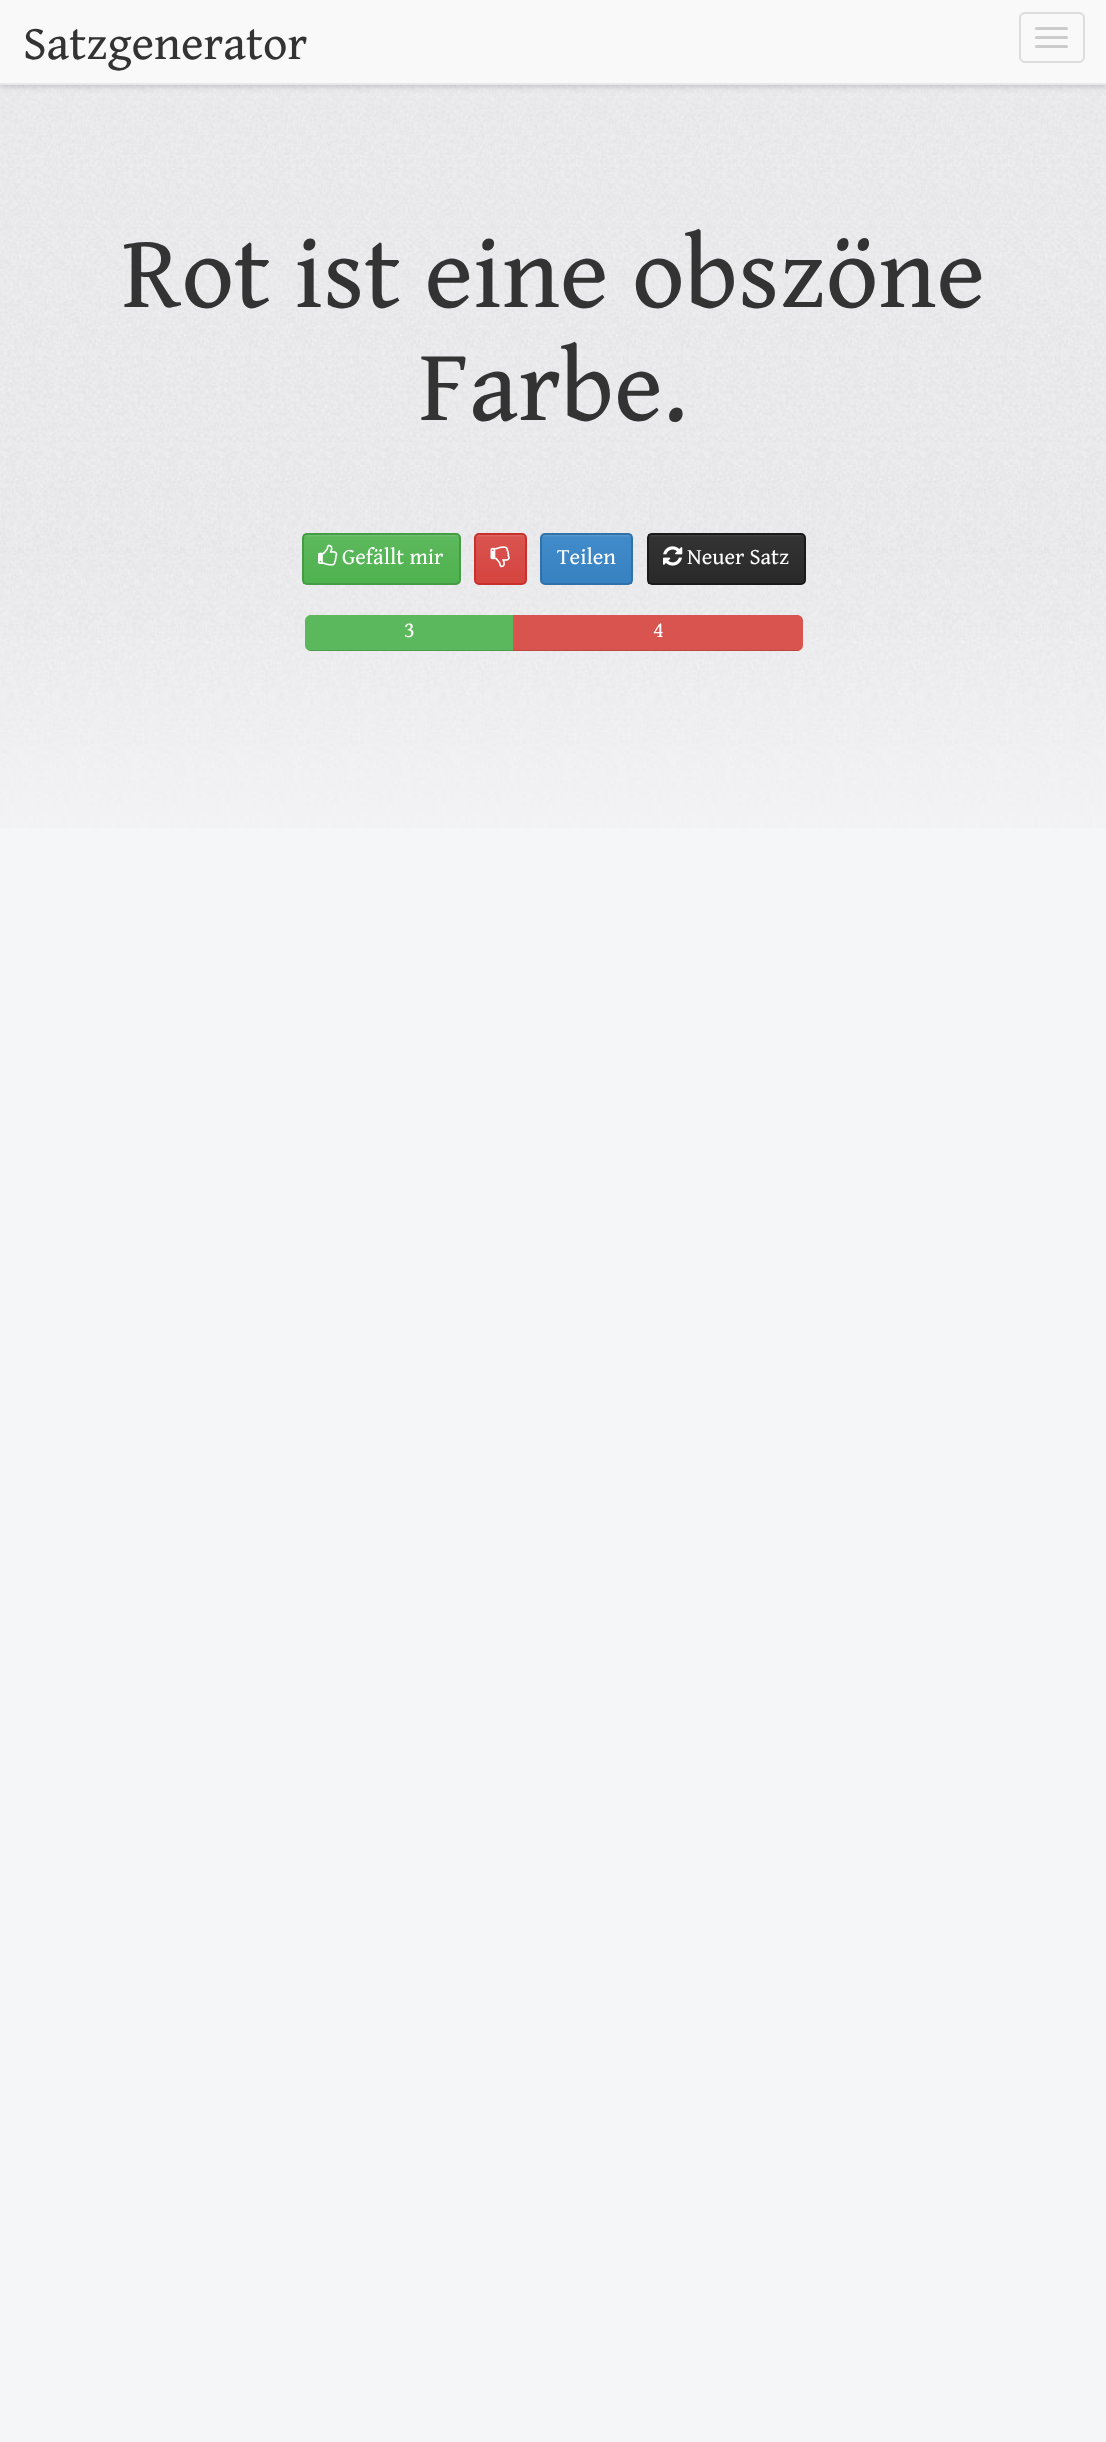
<?xml version="1.0" encoding="UTF-8"?>
<svg xmlns="http://www.w3.org/2000/svg" xmlns:xlink="http://www.w3.org/1999/xlink" width="1106" height="2442">
  <defs>
    <linearGradient id="g1" gradientUnits="userSpaceOnUse" x1="381" y1="534" x2="381" y2="584"><stop offset="0" stop-color="#80c780" /><stop offset="0.06" stop-color="#5cb85c" /><stop offset="1" stop-color="#4eb24e" /></linearGradient>
    <linearGradient id="g2" gradientUnits="userSpaceOnUse" x1="500" y1="534" x2="500" y2="584"><stop offset="0" stop-color="#e27c79" /><stop offset="0.06" stop-color="#d9534f" /><stop offset="1" stop-color="#d5433e" /></linearGradient>
    <linearGradient id="g3" gradientUnits="userSpaceOnUse" x1="587" y1="534" x2="587" y2="584"><stop offset="0" stop-color="#6aa3d5" /><stop offset="0.06" stop-color="#428bca" /><stop offset="1" stop-color="#3681c1" /></linearGradient>
    <linearGradient id="g4" gradientUnits="userSpaceOnUse" x1="726" y1="534" x2="726" y2="584"><stop offset="0" stop-color="#4d4d4d" /><stop offset="0.06" stop-color="#333333" /><stop offset="1" stop-color="#292929" /></linearGradient>
    <clipPath id="clip1"><rect x="305" y="615" width="498" height="36" rx="6" /></clipPath>
  </defs>
  <rect width="100%" height="100%" fill="#f5f6f7" />
  <image x="0" y="85" width="1106" height="743" xlink:href="image1.png" />
  <rect y="2" width="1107" height="84" fill="#000000" fill-opacity="0.2" filter="blur(3px)" />
  <rect width="1106" height="83" fill="#f9f9f9" />
  <rect y="83" width="1106" height="2" fill="#e8e8e8" />
  <rect x="1020" y="13" width="64" height="49" rx="5" fill="none" stroke="#dddddd" stroke-width="2" />
  <rect x="1035" y="27" width="33" height="3" rx="1.5" fill="#cccccc" />
  <rect x="1035" y="36" width="33" height="3" rx="1.5" fill="#cccccc" />
  <rect x="1035" y="45" width="33" height="3" rx="1.5" fill="#cccccc" />
  <rect x="303" y="534" width="156" height="50" fill="url(#g1)" />
  <rect x="303" y="534" width="157" height="50" rx="4" fill="none" stroke="#449d44" stroke-width="2" />
  <image x="318" y="544" width="20" height="22" xlink:href="image2.png" />
  <rect x="476" y="535" width="49" height="48" fill="url(#g2)" />
  <rect x="475" y="534" width="51" height="50" rx="4" fill="none" stroke="#c9302c" stroke-width="2" />
  <image x="490" y="546" width="20" height="22" xlink:href="image3.png" />
  <rect x="542" y="534" width="90" height="50" fill="url(#g3)" />
  <rect x="541" y="534" width="91" height="50" rx="4" fill="none" stroke="#3071a9" stroke-width="2" />
  <rect x="648" y="534" width="156" height="50" fill="url(#g4)" />
  <rect x="648" y="534" width="157" height="50" rx="4" fill="none" stroke="#1a1a1a" stroke-width="2" />
  <image x="663" y="546" width="20" height="20" xlink:href="image4.png" />
  <path d="M 311 615 h 202 v 36 h -202 c -3.5 0 -6 -2.5 -6 -6 v -24 c 0 -3.5 2.5 -6 6 -6 z" fill="#5cb85c" />
  <g clip-path="url(#clip1)">
    <rect x="305" y="650" width="208" height="1" fill="#000000" fill-opacity="0.15" />
  </g>
  <path d="M 513 615 h 284 c 3.5 0 6 2.5 6 6 v 24 c 0 3.5 -2.5 6 -6 6 h -284 z" fill="#d9534f" />
  <g clip-path="url(#clip1)">
    <rect x="513" y="650" width="290" height="1" fill="#000000" fill-opacity="0.15" />
  </g>
  <text x="23" y="59" style="font-family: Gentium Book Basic; font-size: 48px; fill: #333333">Satzgenerator</text>
  <text x="122" y="307" style="font-family: Gentium Book Basic; font-size: 103.25px; fill: #333333">Rot ist eine obszöne</text>
  <text x="419" y="420" style="font-family: Gentium Book Basic; font-size: 103.25px; fill: #333333">Farbe.</text>
  <text x="342" y="564" style="font-family: Gentium Book Basic; font-size: 22.5px; fill: #ffffff">Gefällt mir</text>
  <text x="557" y="564" style="font-family: Gentium Book Basic; font-size: 22.5px; fill: #ffffff">Teilen</text>
  <text x="687" y="564" style="font-family: Gentium Book Basic; font-size: 22.5px; fill: #ffffff">Neuer Satz</text>
  <text x="404" y="637" style="font-family: Gentium Book Basic; font-size: 22.5px; fill: #ffffff">3</text>
  <text x="653" y="637" style="font-family: Gentium Book Basic; font-size: 22.5px; fill: #ffffff">4</text>
</svg>
